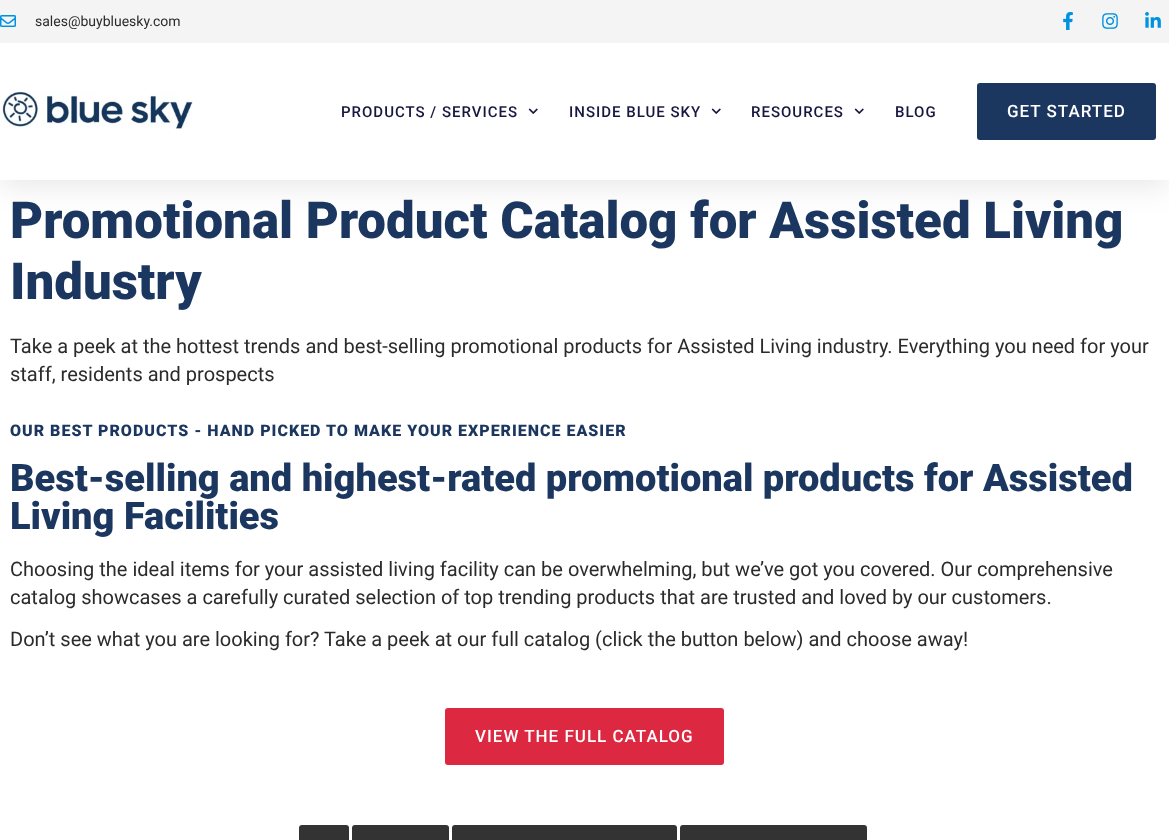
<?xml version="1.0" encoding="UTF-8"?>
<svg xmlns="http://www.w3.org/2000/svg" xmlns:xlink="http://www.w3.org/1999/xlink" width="1169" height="840">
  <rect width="100%" height="100%" fill="#ffffff" />
  <rect y="5" width="1169" height="180" fill="#000000" fill-opacity="0.1" filter="blur(15px)" />
  <rect width="1169" height="43" fill="#f4f4f4" />
  <image x="0" y="15" width="16" height="12" xlink:href="image1.png" />
  <image x="1063" y="12" width="10" height="18" xlink:href="image2.png" />
  <image x="1102" y="13" width="16" height="16" xlink:href="image3.png" />
  <image x="1145" y="12" width="16" height="16" xlink:href="image4.png" />
  <rect y="43" width="1169" height="137" fill="#ffffff" />
  <image x="0" y="91" width="193" height="38" xlink:href="image5.png" />
  <image x="528" y="108" width="10" height="6" xlink:href="image6.png" />
  <image x="711" y="108" width="10" height="6" xlink:href="image6.png" />
  <image x="854" y="108" width="10" height="6" xlink:href="image6.png" />
  <rect x="977" y="83" width="179" height="57" rx="3" fill="#1b365f" />
  <rect x="445" y="708" width="279" height="57" rx="3" fill="#dc2841" />
  <rect x="299" y="825" width="50" height="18" rx="3" fill="#333333" />
  <rect x="352" y="825" width="97" height="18" rx="3" fill="#333333" />
  <rect x="452" y="825" width="225" height="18" rx="3" fill="#333333" />
  <rect x="680" y="825" width="187" height="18" rx="3" fill="#333333" />
  <text x="35" y="26" style="font-family: Roboto; font-size: 14px; fill: #2b2b2b">sales@buybluesky.com</text>
  <text x="341" y="117" style="font-family: Roboto; font-size: 15px; font-weight: 500; letter-spacing: 1px; fill: #16163f">PRODUCTS / SERVICES</text>
  <text x="569" y="117" style="font-family: Roboto; font-size: 15px; font-weight: 500; letter-spacing: 1px; fill: #16163f">INSIDE BLUE SKY</text>
  <text x="751" y="117" style="font-family: Roboto; font-size: 15px; font-weight: 500; letter-spacing: 1px; fill: #16163f">RESOURCES</text>
  <text x="895" y="117" style="font-family: Roboto; font-size: 15px; font-weight: 500; letter-spacing: 1px; fill: #16163f">BLOG</text>
  <text x="1007" y="117" style="font-family: Roboto; font-size: 17px; font-weight: 500; letter-spacing: 1px; fill: #ffffff">GET STARTED</text>
  <text x="10" y="238" style="font-family: Roboto; font-size: 51px; font-weight: 900; fill: #1b365f">Promotional Product Catalog for Assisted Living</text>
  <text x="10" y="299" style="font-family: Roboto; font-size: 51px; font-weight: 900; fill: #1b365f">Industry</text>
  <text x="10" y="353" style="font-family: Roboto; font-size: 20px; fill: #2b2b2b">Take a peek at the hottest trends and best-selling promotional products for Assisted Living industry. Everything you need for your</text>
  <text x="10" y="381" style="font-family: Roboto; font-size: 20px; fill: #2b2b2b">staff, residents and prospects</text>
  <text x="10" y="436" style="font-family: Roboto; font-size: 16px; font-weight: 900; letter-spacing: 1px; fill: #1b365f">OUR BEST PRODUCTS - HAND PICKED TO MAKE YOUR EXPERIENCE EASIER</text>
  <text x="10" y="491" style="font-family: Roboto; font-size: 38px; font-weight: 900; fill: #1b365f">Best-selling and highest-rated promotional products for Assisted</text>
  <text x="10" y="529" style="font-family: Roboto; font-size: 38px; font-weight: 900; fill: #1b365f">Living Facilities</text>
  <text x="10" y="576" style="font-family: Roboto; font-size: 20px; fill: #2b2b2b">Choosing the ideal items for your assisted living facility can be overwhelming, but we’ve got you covered. Our comprehensive</text>
  <text x="10" y="604" style="font-family: Roboto; font-size: 20px; fill: #2b2b2b">catalog showcases a carefully curated selection of top trending products that are trusted and loved by our customers.</text>
  <text x="10" y="646" style="font-family: Roboto; font-size: 20px; fill: #2b2b2b">Don’t see what you are looking for? Take a peek at our full catalog (click the button below) and choose away!</text>
  <text x="475" y="742" style="font-family: Roboto; font-size: 17px; font-weight: 500; letter-spacing: 1px; fill: #ffffff">VIEW THE FULL CATALOG</text>
</svg>
